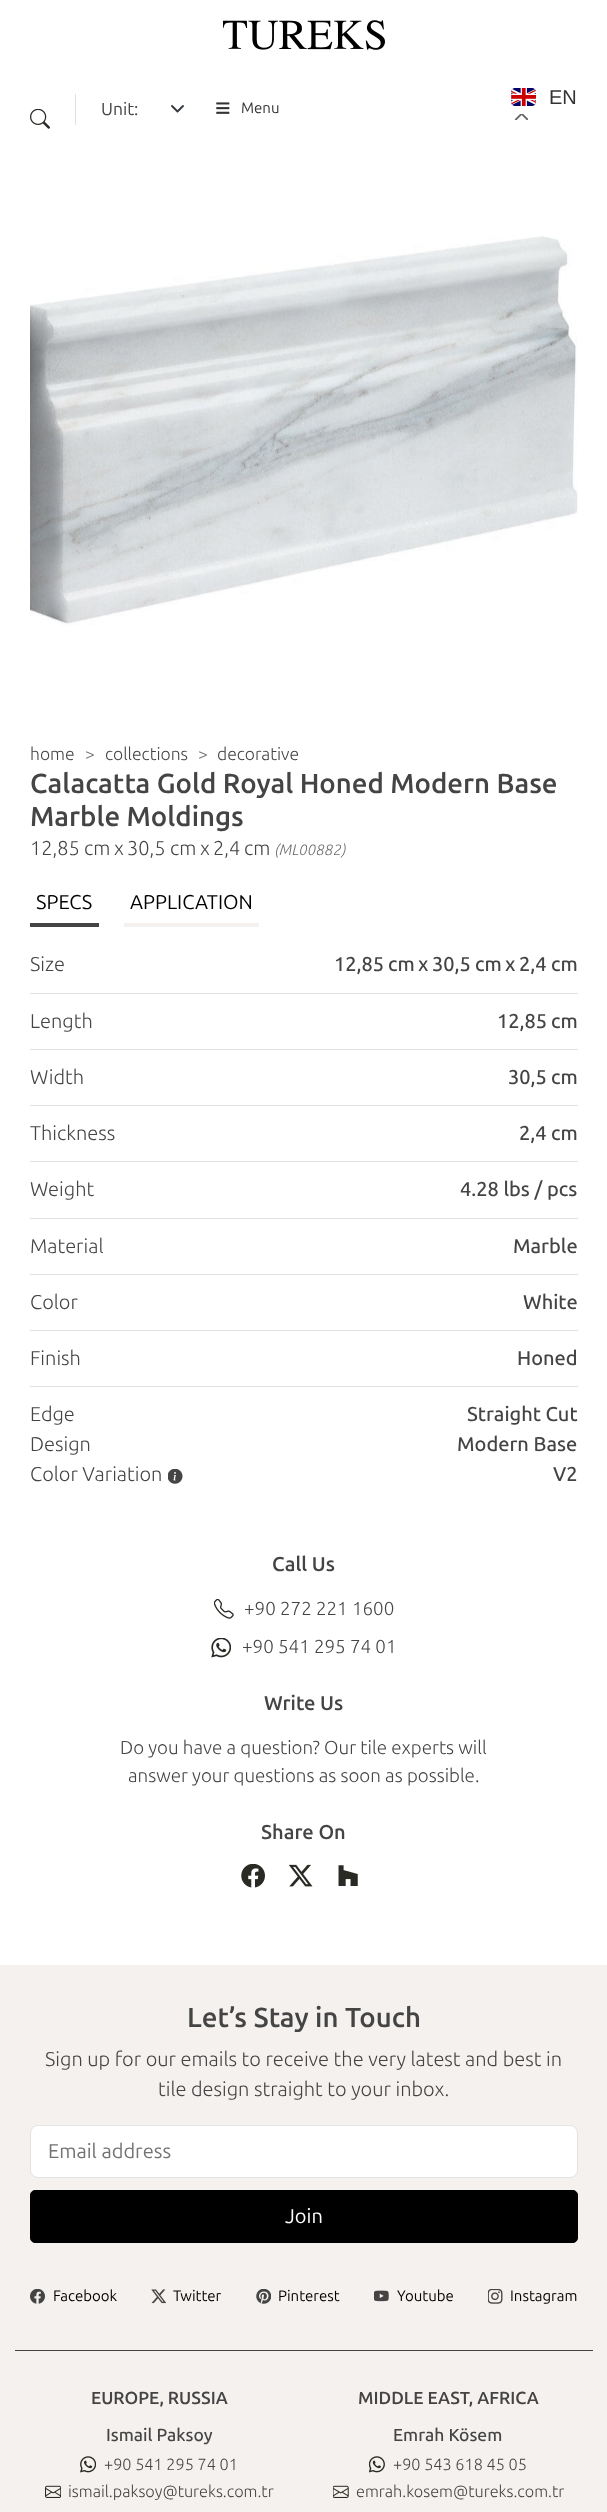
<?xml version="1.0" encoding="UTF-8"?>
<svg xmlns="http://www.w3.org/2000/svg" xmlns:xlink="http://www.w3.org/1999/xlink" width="607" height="2512">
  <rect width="100%" height="100%" fill="#ffffff" />
  <image x="223" y="20" width="162" height="30" xlink:href="image1.png" />
  <image x="511" y="88" width="25" height="18" xlink:href="image2.png" />
  <image x="514" y="114" width="14" height="6" xlink:href="image3.png" />
  <image x="30" y="109" width="20" height="20" xlink:href="image4.png" />
  <rect x="75" y="94" width="1" height="31" fill="#dee2e6" />
  <path d="M 172 106 l 5.5 5.5 l 5.5 -5.5" fill="none" stroke="#343a40" stroke-width="1.9" stroke-linecap="round" stroke-linejoin="round" />
  <image x="216" y="102" width="14" height="12" xlink:href="image5.png" />
  <image x="30" y="236" width="548" height="390" xlink:href="image6.png" />
  <rect x="30" y="923" width="69" height="4" fill="#444444" />
  <rect x="124" y="923" width="135" height="4" fill="#f5f1ef" />
  <rect x="30" y="993" width="548" height="1" fill="#dee2e6" />
  <rect x="30" y="1049" width="548" height="1" fill="#dee2e6" />
  <rect x="30" y="1105" width="548" height="1" fill="#dee2e6" />
  <rect x="30" y="1161" width="548" height="1" fill="#dee2e6" />
  <rect x="30" y="1218" width="548" height="1" fill="#dee2e6" />
  <rect x="30" y="1274" width="548" height="1" fill="#dee2e6" />
  <rect x="30" y="1330" width="548" height="1" fill="#dee2e6" />
  <rect x="30" y="1386" width="548" height="1" fill="#dee2e6" />
  <image x="168" y="1469" width="15" height="15" xlink:href="image7.png" />
  <image x="214" y="1599" width="20" height="20" xlink:href="image8.png" />
  <image x="211" y="1638" width="20" height="20" xlink:href="image9.png" />
  <image x="241" y="1864" width="24" height="24" xlink:href="image10.png" />
  <image x="289" y="1864" width="24" height="23" xlink:href="image11.png" />
  <image x="338" y="1865" width="20" height="21" xlink:href="image12.png" />
  <rect y="1965" width="607" height="547" fill="#f5f1ef" />
  <rect x="15" y="2350" width="578" height="1" fill="#444444" />
  <rect x="30.5" y="2125.5" width="547" height="52" rx="7.5" fill="#ffffff" stroke="#e3e3e3" />
  <rect x="30.5" y="2190.5" width="547" height="52" rx="4.5" fill="#000000" stroke="#000000" />
  <image x="30" y="2289" width="15" height="15" xlink:href="image13.png" />
  <image x="151" y="2289" width="15" height="15" xlink:href="image14.png" />
  <image x="256" y="2289" width="15" height="15" xlink:href="image15.png" />
  <image x="374" y="2290" width="15" height="12" xlink:href="image16.png" />
  <image x="488" y="2289" width="15" height="15" xlink:href="image17.png" />
  <image x="80" y="2456" width="16" height="17" xlink:href="image18.png" />
  <image x="45" y="2485" width="16" height="13" xlink:href="image19.png" />
  <image x="369" y="2456" width="16" height="17" xlink:href="image20.png" />
  <image x="333" y="2485" width="16" height="13" xlink:href="image21.png" />
  <text x="549" y="104" style="font-family: Liberation Sans; font-size: 20px; fill: #333333">EN</text>
  <text x="101" y="115" style="font-family: Ubuntu Sans; font-size: 17.5px; fill: #444444">Unit:</text>
  <text x="241" y="113" style="font-family: Ubuntu Sans; font-size: 15px; fill: #333333">Menu</text>
  <text x="30" y="760" style="font-family: Ubuntu Sans; font-size: 17.5px; font-weight: 300; fill: #444444">home</text>
  <text x="85" y="760" style="font-family: Ubuntu Sans; font-size: 17.5px; font-weight: 300; fill: #737373">&gt;</text>
  <text x="105" y="760" style="font-family: Ubuntu Sans; font-size: 17.5px; font-weight: 300; fill: #444444">collections</text>
  <text x="198" y="760" style="font-family: Ubuntu Sans; font-size: 17.5px; font-weight: 300; fill: #737373">&gt;</text>
  <text x="217" y="760" style="font-family: Ubuntu Sans; font-size: 17.5px; font-weight: 300; fill: #444444">decorative</text>
  <text x="30" y="793" style="font-family: Ubuntu Sans; font-size: 27.5px; font-weight: 600; fill: #444444">Calacatta Gold Royal Honed Modern Base</text>
  <text x="30" y="826" style="font-family: Ubuntu Sans; font-size: 27.5px; font-weight: 600; fill: #444444">Marble Moldings</text>
  <text x="30" y="855" style="font-family: Ubuntu Sans; font-size: 20px; font-weight: 300; fill: #444444">12,85</text>
  <text x="84" y="855" style="font-family: Ubuntu Sans; font-size: 20px; font-weight: 300; fill: #444444">cm</text>
  <text x="114" y="855" style="font-family: Ubuntu Sans; font-size: 20px; font-weight: 300; fill: #444444">x</text>
  <text x="127" y="855" style="font-family: Ubuntu Sans; font-size: 20px; font-weight: 300; fill: #444444">30,5</text>
  <text x="170" y="855" style="font-family: Ubuntu Sans; font-size: 20px; font-weight: 300; fill: #444444">cm</text>
  <text x="200" y="855" style="font-family: Ubuntu Sans; font-size: 20px; font-weight: 300; fill: #444444">x</text>
  <text x="213" y="855" style="font-family: Ubuntu Sans; font-size: 20px; font-weight: 300; fill: #444444">2,4</text>
  <text x="244" y="855" style="font-family: Ubuntu Sans; font-size: 20px; font-weight: 300; fill: #444444">cm</text>
  <text x="275" y="855" style="font-family: Ubuntu Sans; font-size: 15px; font-weight: 300; font-style: italic; fill: #696969">(ML00882)</text>
  <text x="36" y="909" style="font-family: Ubuntu Sans; font-size: 20px; fill: #000000">SPECS</text>
  <text x="130" y="909" style="font-family: Ubuntu Sans; font-size: 20px; fill: #000000">APPLICATION</text>
  <text x="30" y="971" style="font-family: Ubuntu Sans; font-size: 20px; font-weight: 300; fill: #444444">Size</text>
  <text x="334" y="971" style="font-family: Ubuntu Sans; font-size: 20px; font-weight: 500; fill: #444444">12,85</text>
  <text x="388" y="971" style="font-family: Ubuntu Sans; font-size: 20px; font-weight: 500; fill: #444444">cm</text>
  <text x="418" y="971" style="font-family: Ubuntu Sans; font-size: 20px; font-weight: 500; fill: #444444">x</text>
  <text x="432" y="971" style="font-family: Ubuntu Sans; font-size: 20px; font-weight: 500; fill: #444444">30,5</text>
  <text x="475" y="971" style="font-family: Ubuntu Sans; font-size: 20px; font-weight: 500; fill: #444444">cm</text>
  <text x="505" y="971" style="font-family: Ubuntu Sans; font-size: 20px; font-weight: 500; fill: #444444">x</text>
  <text x="519" y="971" style="font-family: Ubuntu Sans; font-size: 20px; font-weight: 500; fill: #444444">2,4</text>
  <text x="551" y="971" style="font-family: Ubuntu Sans; font-size: 20px; font-weight: 500; fill: #444444">cm</text>
  <text x="30" y="1028" style="font-family: Ubuntu Sans; font-size: 20px; font-weight: 300; fill: #444444">Length</text>
  <text x="497" y="1028" style="font-family: Ubuntu Sans; font-size: 20px; font-weight: 500; fill: #444444">12,85</text>
  <text x="551" y="1028" style="font-family: Ubuntu Sans; font-size: 20px; font-weight: 500; fill: #444444">cm</text>
  <text x="30" y="1084" style="font-family: Ubuntu Sans; font-size: 20px; font-weight: 300; fill: #444444">Width</text>
  <text x="508" y="1084" style="font-family: Ubuntu Sans; font-size: 20px; font-weight: 500; fill: #444444">30,5</text>
  <text x="551" y="1084" style="font-family: Ubuntu Sans; font-size: 20px; font-weight: 500; fill: #444444">cm</text>
  <text x="30" y="1140" style="font-family: Ubuntu Sans; font-size: 20px; font-weight: 300; fill: #444444">Thickness</text>
  <text x="519" y="1140" style="font-family: Ubuntu Sans; font-size: 20px; font-weight: 500; fill: #444444">2,4</text>
  <text x="551" y="1140" style="font-family: Ubuntu Sans; font-size: 20px; font-weight: 500; fill: #444444">cm</text>
  <text x="30" y="1196" style="font-family: Ubuntu Sans; font-size: 20px; font-weight: 300; fill: #444444">Weight</text>
  <text x="460" y="1196" style="font-family: Ubuntu Sans; font-size: 20px; font-weight: 500; fill: #444444">4.28 lbs / pcs</text>
  <text x="30" y="1253" style="font-family: Ubuntu Sans; font-size: 20px; font-weight: 300; fill: #444444">Material</text>
  <text x="513" y="1253" style="font-family: Ubuntu Sans; font-size: 20px; font-weight: 500; fill: #444444">Marble</text>
  <text x="30" y="1309" style="font-family: Ubuntu Sans; font-size: 20px; font-weight: 300; fill: #444444">Color</text>
  <text x="523" y="1309" style="font-family: Ubuntu Sans; font-size: 20px; font-weight: 500; fill: #444444">White</text>
  <text x="30" y="1365" style="font-family: Ubuntu Sans; font-size: 20px; font-weight: 300; fill: #444444">Finish</text>
  <text x="517" y="1365" style="font-family: Ubuntu Sans; font-size: 20px; font-weight: 500; fill: #444444">Honed</text>
  <text x="30" y="1421" style="font-family: Ubuntu Sans; font-size: 20px; font-weight: 300; fill: #444444">Edge</text>
  <text x="467" y="1421" style="font-family: Ubuntu Sans; font-size: 20px; font-weight: 500; fill: #444444">Straight Cut</text>
  <text x="30" y="1451" style="font-family: Ubuntu Sans; font-size: 20px; font-weight: 300; fill: #444444">Design</text>
  <text x="457" y="1451" style="font-family: Ubuntu Sans; font-size: 20px; font-weight: 500; fill: #444444">Modern Base</text>
  <text x="30" y="1481" style="font-family: Ubuntu Sans; font-size: 20px; font-weight: 300; fill: #444444">Color Variation</text>
  <text x="553" y="1481" style="font-family: Ubuntu Sans; font-size: 20px; font-weight: 500; fill: #444444">V2</text>
  <text x="272" y="1571" style="font-family: Ubuntu Sans; font-size: 20px; font-weight: 600; fill: #444444">Call Us</text>
  <text x="244" y="1615" style="font-family: Ubuntu Sans; font-size: 18.75px; font-weight: 300; fill: #444444">+90 272 221 1600</text>
  <text x="242" y="1653" style="font-family: Ubuntu Sans; font-size: 18.75px; font-weight: 300; fill: #444444">+90 541 295 74 01</text>
  <text x="264" y="1710" style="font-family: Ubuntu Sans; font-size: 20px; font-weight: 600; fill: #444444">Write Us</text>
  <text x="120" y="1754" style="font-family: Ubuntu Sans; font-size: 18.75px; font-weight: 300; fill: #444444">Do you have a question? Our tile experts will</text>
  <text x="128" y="1782" style="font-family: Ubuntu Sans; font-size: 18.75px; font-weight: 300; fill: #444444">answer your questions as soon as possible.</text>
  <text x="261" y="1839" style="font-family: Ubuntu Sans; font-size: 20px; font-weight: 600; fill: #444444">Share On</text>
  <text x="187" y="2027" style="font-family: Ubuntu Sans; font-size: 27.5px; font-weight: 600; fill: #444444">Let’s Stay in Touch</text>
  <text x="45" y="2066" style="font-family: Ubuntu Sans; font-size: 20px; font-weight: 300; fill: #444444">Sign up for our emails to receive the very latest and best in</text>
  <text x="158" y="2096" style="font-family: Ubuntu Sans; font-size: 20px; font-weight: 300; fill: #444444">tile design straight to your inbox.</text>
  <text x="48" y="2158" style="font-family: Ubuntu Sans; font-size: 20px; fill: #737373">Email address</text>
  <text x="285" y="2223" style="font-family: Ubuntu Sans; font-size: 20px; fill: #ffffff">Join</text>
  <text x="53" y="2301" style="font-family: Ubuntu Sans; font-size: 15px; fill: #000000">Facebook</text>
  <text x="173" y="2301" style="font-family: Ubuntu Sans; font-size: 15px; fill: #000000">Twitter</text>
  <text x="278" y="2301" style="font-family: Ubuntu Sans; font-size: 15px; fill: #000000">Pinterest</text>
  <text x="397" y="2301" style="font-family: Ubuntu Sans; font-size: 15px; fill: #000000">Youtube</text>
  <text x="510" y="2301" style="font-family: Ubuntu Sans; font-size: 15px; fill: #000000">Instagram</text>
  <text x="91" y="2404" style="font-family: Ubuntu Sans; font-size: 17.5px; font-weight: 600; fill: #444444">EUROPE, RUSSIA</text>
  <text x="106" y="2441" style="font-family: Ubuntu Sans; font-size: 17.5px; font-weight: 500; fill: #444444">Ismail Paksoy</text>
  <text x="104" y="2470" style="font-family: Ubuntu Sans; font-size: 16.25px; font-weight: 300; fill: #444444">+90 541 295 74 01</text>
  <text x="68" y="2497" style="font-family: Ubuntu Sans; font-size: 16.25px; font-weight: 300; fill: #444444">ismail.paksoy@tureks.com.tr</text>
  <text x="358" y="2404" style="font-family: Ubuntu Sans; font-size: 17.5px; font-weight: 600; fill: #444444">MIDDLE EAST, AFRICA</text>
  <text x="393" y="2441" style="font-family: Ubuntu Sans; font-size: 17.5px; font-weight: 500; fill: #444444">Emrah Kösem</text>
  <text x="393" y="2470" style="font-family: Ubuntu Sans; font-size: 16.25px; font-weight: 300; fill: #444444">+90 543 618 45 05</text>
  <text x="356" y="2497" style="font-family: Ubuntu Sans; font-size: 16.25px; font-weight: 300; fill: #444444">emrah.kosem@tureks.com.tr</text>
</svg>
